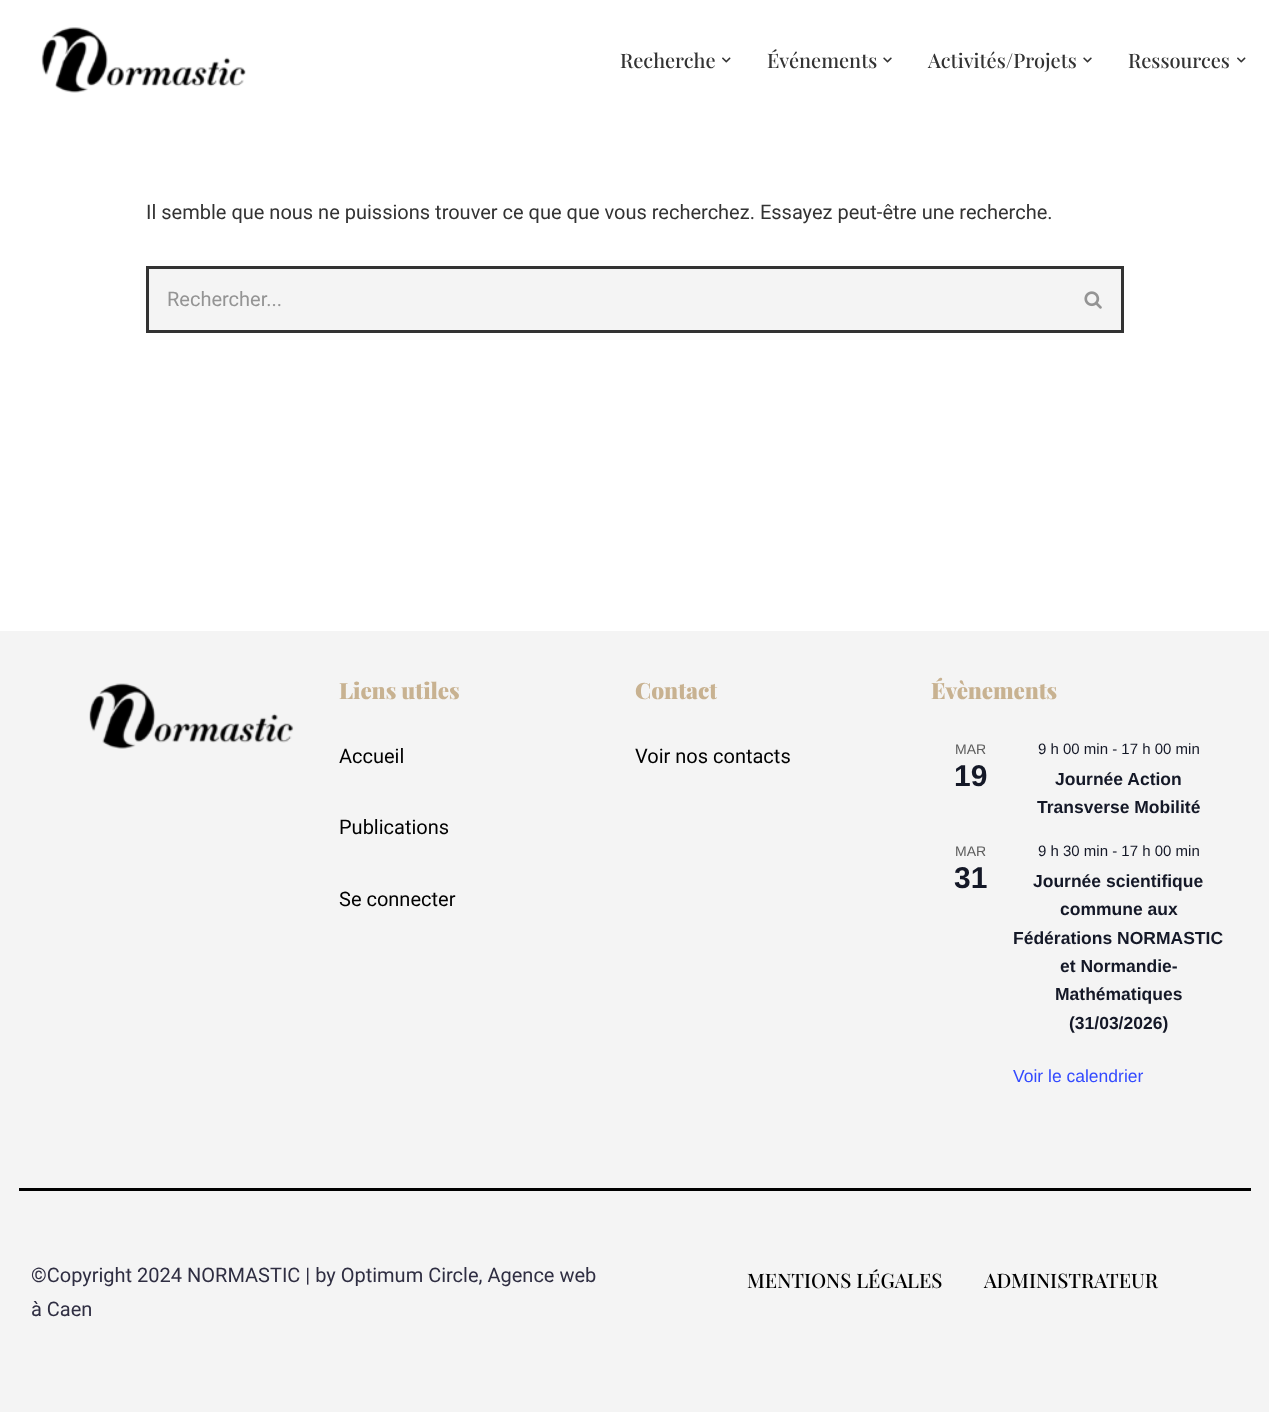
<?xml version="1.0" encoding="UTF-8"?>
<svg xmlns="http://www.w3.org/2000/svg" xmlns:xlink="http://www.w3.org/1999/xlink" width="1269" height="1412">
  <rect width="100%" height="100%" fill="#ffffff" />
  <image x="41" y="27" width="205" height="66" xlink:href="image1.png" />
  <image x="722" y="57" width="9" height="6" xlink:href="image2.png" />
  <image x="883" y="57" width="9" height="6" xlink:href="image3.png" />
  <image x="1083" y="57" width="9" height="6" xlink:href="image3.png" />
  <image x="1237" y="57" width="9" height="6" xlink:href="image2.png" />
  <rect x="149" y="269" width="972" height="61" fill="#f4f4f4" />
  <rect x="146" y="266" width="978" height="3" fill="#333333" />
  <rect x="146" y="330" width="919" height="3" fill="#333333" />
  <rect x="146" y="266" width="3" height="67" fill="#333333" />
  <rect x="1121" y="266" width="3" height="67" fill="#333333" />
  <rect x="1065" y="330" width="59" height="3" fill="#333333" />
  <image x="1084" y="291" width="18" height="18" xlink:href="image4.png" />
  <rect y="631" width="1269" height="781" fill="#f4f4f4" />
  <image x="89" y="683" width="205" height="66" xlink:href="image5.png" />
  <rect x="19" y="1188" width="1232" height="3" fill="#000000" />
  <text x="620" y="68" style="font-family: Playfair Display; font-size: 20px; font-weight: 500; fill: #333333">Recherche</text>
  <text x="767" y="68" style="font-family: Playfair Display; font-size: 20px; font-weight: 500; fill: #333333">Événements</text>
  <text x="928" y="68" style="font-family: Playfair Display; font-size: 20px; font-weight: 500; fill: #333333">Activités/Projets</text>
  <text x="1128" y="68" style="font-family: Playfair Display; font-size: 20px; font-weight: 500; fill: #333333">Ressources</text>
  <text x="146" y="219" style="font-family: Roboto; font-size: 20px; fill: #333333">Il semble que nous ne puissions trouver ce que que vous recherchez. Essayez peut-être une recherche.</text>
  <text x="167" y="306" style="font-family: Roboto; font-size: 20px; fill: #949494">Rechercher...</text>
  <text x="339" y="699" style="font-family: Playfair Display; font-size: 22.5px; font-weight: 900; fill: #c8b291">Liens utiles</text>
  <text x="339" y="763" style="font-family: Roboto; font-size: 20px; fill: #000000">Accueil</text>
  <text x="339" y="834" style="font-family: Roboto; font-size: 20px; fill: #000000">Publications</text>
  <text x="339" y="906" style="font-family: Roboto; font-size: 20px; fill: #000000">Se connecter</text>
  <text x="635" y="699" style="font-family: Playfair Display; font-size: 22.5px; font-weight: 900; fill: #c8b291">Contact</text>
  <text x="635" y="763" style="font-family: Roboto; font-size: 20px; fill: #000000">Voir nos contacts</text>
  <text x="931" y="699" style="font-family: Playfair Display; font-size: 22.5px; font-weight: 900; fill: #c8b291">Évènements</text>
  <text x="955" y="754" style="font-family: Liberation Sans; font-size: 14px; fill: #5d5d5d">MAR</text>
  <text x="954" y="786" style="font-family: Liberation Sans; font-size: 30px; font-weight: bold; fill: #141827">19</text>
  <text x="1038" y="754" style="font-family: Liberation Sans; font-size: 15px; fill: #141827">9 h 00 min - 17 h 00 min</text>
  <text x="1055" y="785" style="font-family: Liberation Sans; font-size: 17.5px; font-weight: bold; fill: #141827">Journée Action</text>
  <text x="1037" y="813" style="font-family: Liberation Sans; font-size: 17.5px; font-weight: bold; fill: #141827">Transverse Mobilité</text>
  <text x="955" y="856" style="font-family: Liberation Sans; font-size: 14px; fill: #5d5d5d">MAR</text>
  <text x="954" y="888" style="font-family: Liberation Sans; font-size: 30px; font-weight: bold; fill: #141827">31</text>
  <text x="1038" y="856" style="font-family: Liberation Sans; font-size: 15px; fill: #141827">9 h 30 min - 17 h 00 min</text>
  <text x="1033" y="887" style="font-family: Liberation Sans; font-size: 17.5px; font-weight: bold; fill: #141827">Journée scientifique</text>
  <text x="1060" y="915" style="font-family: Liberation Sans; font-size: 17.5px; font-weight: bold; fill: #141827">commune aux</text>
  <text x="1013" y="944" style="font-family: Liberation Sans; font-size: 17.5px; font-weight: bold; fill: #141827">Fédérations NORMASTIC</text>
  <text x="1060" y="972" style="font-family: Liberation Sans; font-size: 17.5px; font-weight: bold; fill: #141827">et Normandie-</text>
  <text x="1055" y="1000" style="font-family: Liberation Sans; font-size: 17.5px; font-weight: bold; fill: #141827">Mathématiques</text>
  <text x="1069" y="1029" style="font-family: Liberation Sans; font-size: 17.5px; font-weight: bold; fill: #141827">(31/03/2026)</text>
  <text x="1013" y="1082" style="font-family: Liberation Sans; font-size: 17.5px; fill: #334aff">Voir le calendrier</text>
  <text x="31" y="1282" style="font-family: Roboto; font-size: 20px; fill: #2f2e42">©Copyright 2024 NORMASTIC | by Optimum Circle, Agence web</text>
  <text x="31" y="1316" style="font-family: Roboto; font-size: 20px; fill: #2f2e42">à Caen</text>
  <text x="747" y="1288" style="font-family: Playfair Display; font-size: 20px; font-weight: 500; fill: #000000">MENTIONS LÉGALES</text>
  <text x="984" y="1288" style="font-family: Playfair Display; font-size: 20px; font-weight: 500; fill: #000000">ADMINISTRATEUR</text>
</svg>
